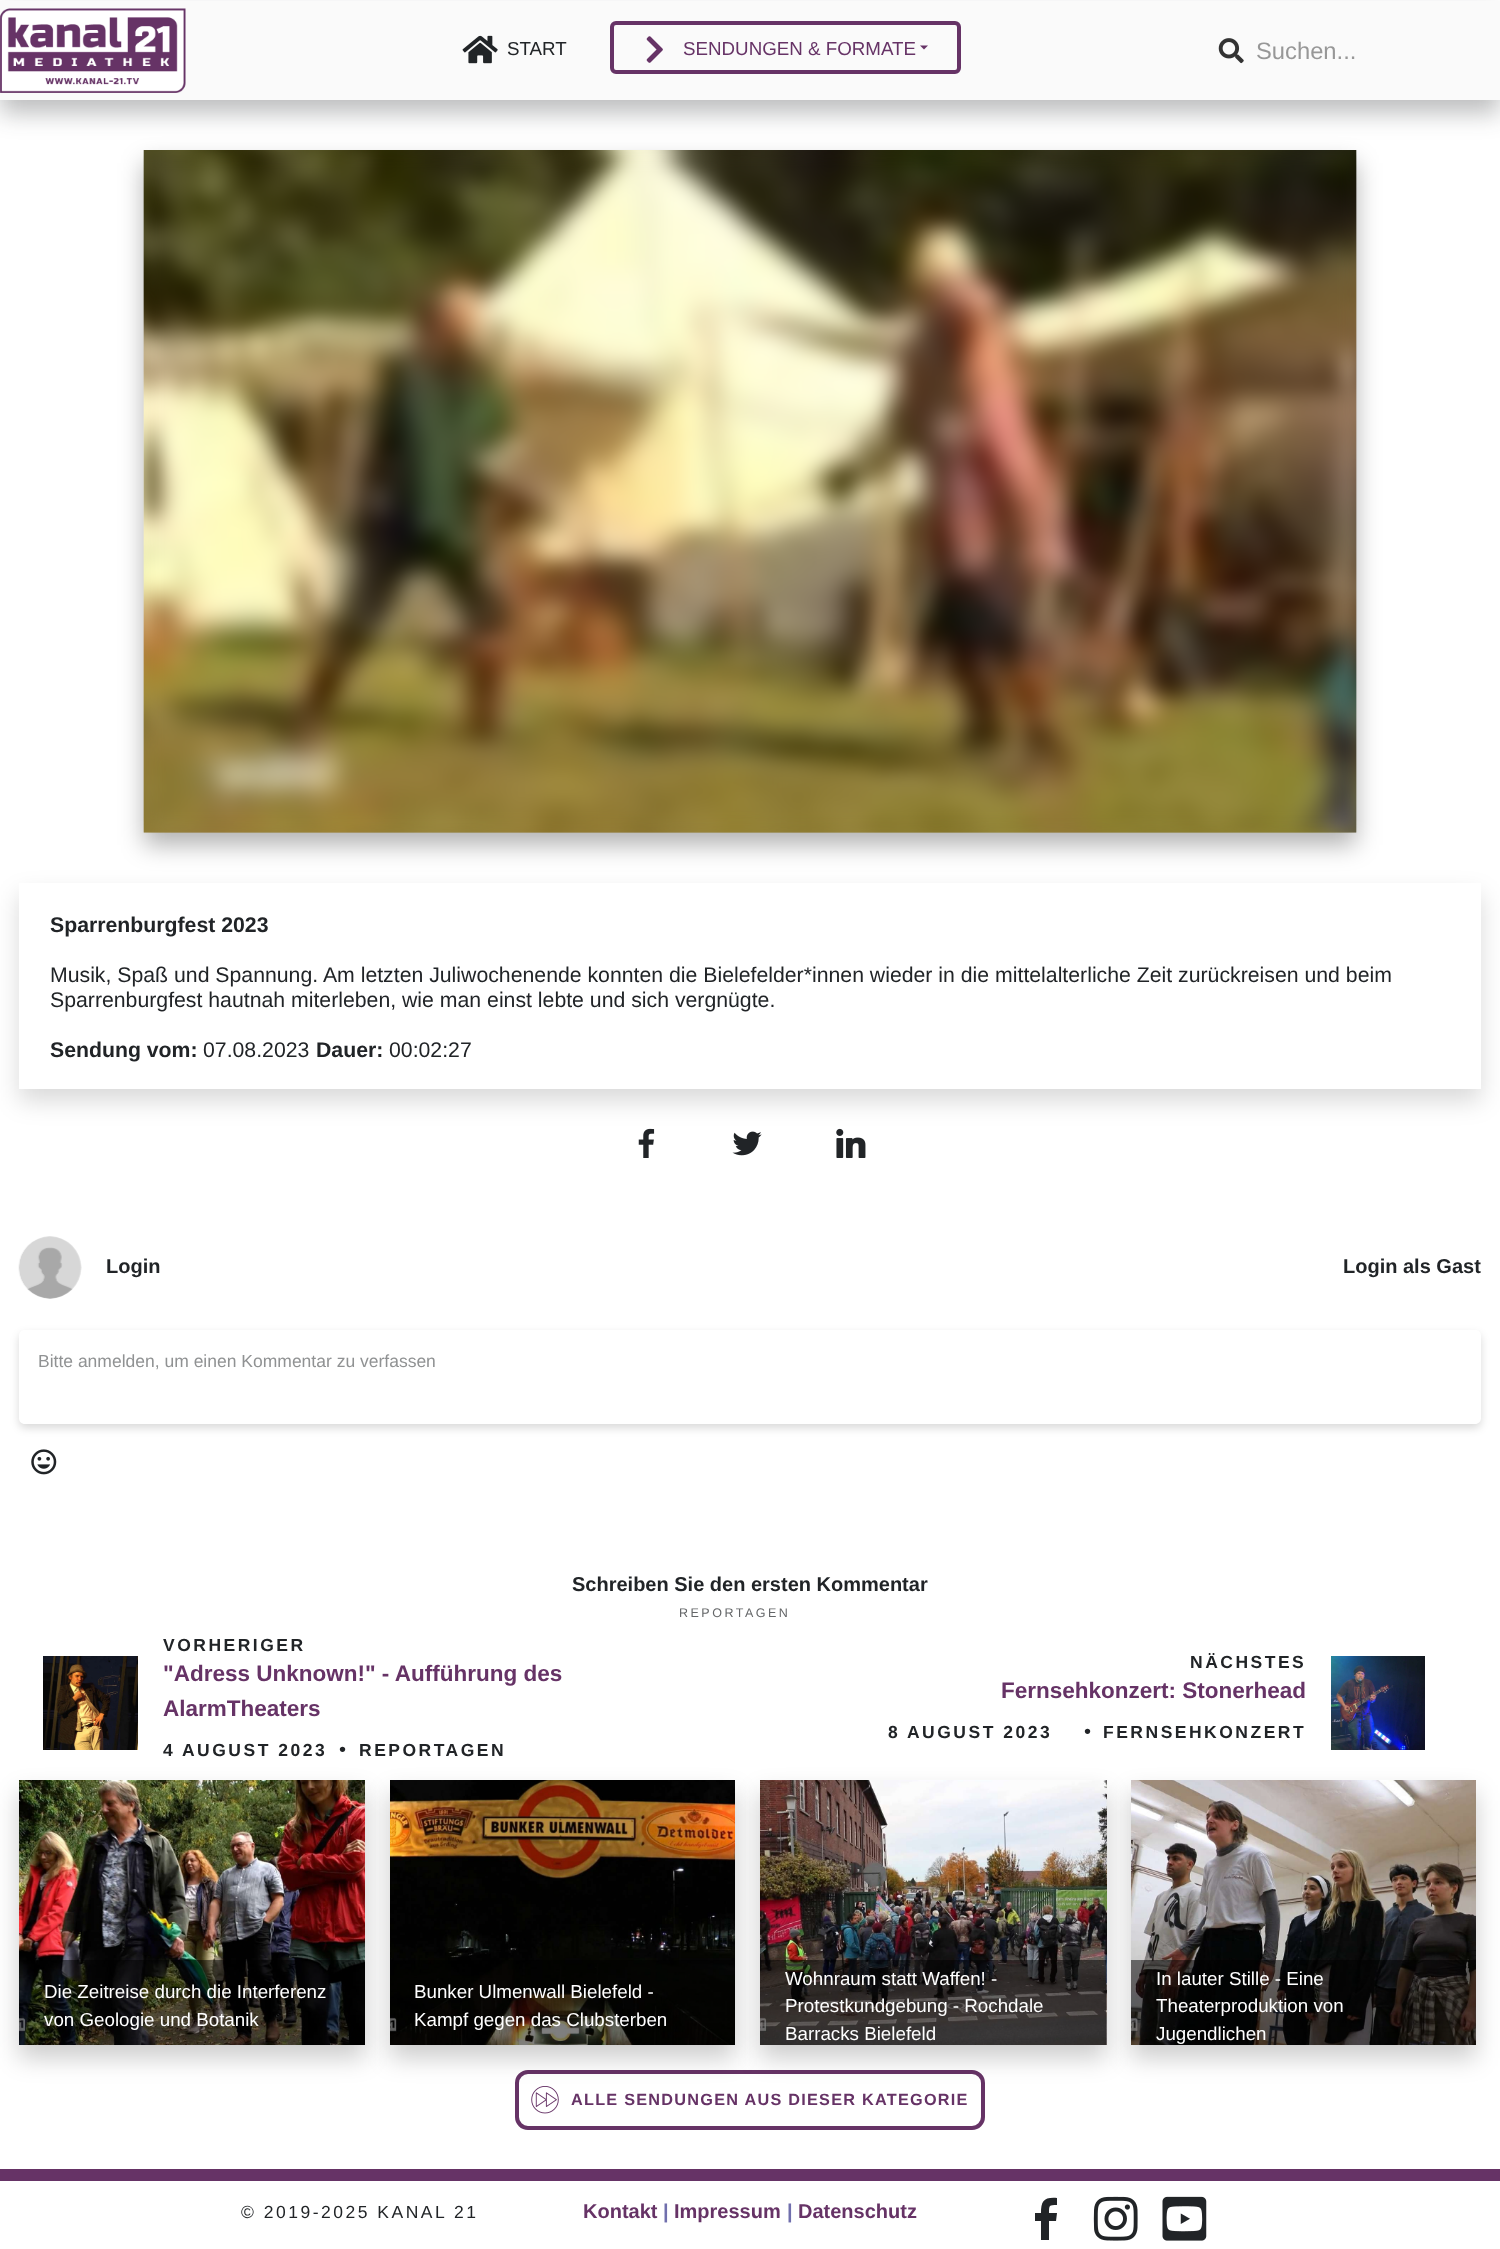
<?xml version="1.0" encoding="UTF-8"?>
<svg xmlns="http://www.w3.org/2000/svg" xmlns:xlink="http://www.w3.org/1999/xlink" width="1500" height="2249">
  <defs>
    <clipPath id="clip1"><path d="M 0 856 h 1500 v 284 h -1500 z m 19 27 h 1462 v 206 h -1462 z" clip-rule="evenodd" /></clipPath>
    <clipPath id="clip2"><path d="M 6 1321 h 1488 v 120 h -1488 z m 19 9 h 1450 c 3.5 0 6 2.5 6 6 v 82 c 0 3.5 -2.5 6 -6 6 h -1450 c -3.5 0 -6 -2.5 -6 -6 v -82 c 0 -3.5 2.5 -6 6 -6 z" clip-rule="evenodd" /></clipPath>
  </defs>
  <rect width="100%" height="100%" fill="#ffffff" />
  <rect x="144" y="163" width="1212" height="682" fill="#000000" fill-opacity="0.3" filter="blur(12.5px)" />
  <image x="143" y="150" width="1214" height="683" xlink:href="image5.png" />
  <rect y="14" width="1500" height="99" fill="#212427" fill-opacity="0.3" filter="blur(12.5px)" />
  <rect y="1" width="1500" height="99" fill="#fafafa" />
  <image x="0" y="8" width="186" height="85" xlink:href="image1.png" />
  <image x="462" y="35" width="36" height="29" xlink:href="image2.png" />
  <rect x="612" y="23" width="347" height="49" rx="4" fill="none" stroke="#663366" stroke-width="4" />
  <image x="646" y="36" width="17" height="27" xlink:href="image3.png" />
  <path d="M 920 45.5 h 8 l -4 4 z" fill="#663366" />
  <image x="1218" y="38" width="26" height="26" xlink:href="image4.png" />
  <g clip-path="url(#clip1)">
    <rect x="19" y="895" width="1462" height="206" fill="#000000" fill-opacity="0.15" filter="blur(12.5px)" />
  </g>
  <image x="638" y="1128" width="17" height="30" xlink:href="image6.png" />
  <image x="732" y="1131" width="30" height="25" xlink:href="image7.png" />
  <image x="836" y="1128" width="30" height="30" xlink:href="image8.png" />
  <image x="18" y="1236" width="64" height="63" xlink:href="image9.png" />
  <g clip-path="url(#clip2)">
    <rect x="19" y="1334" width="1462" height="94" rx="6" fill="#000000" fill-opacity="0.15" filter="blur(4px)" />
  </g>
  <image x="31" y="1449" width="26" height="26" xlink:href="image10.png" />
  <image x="43" y="1656" width="95" height="94" xlink:href="image11.png" />
  <image x="1331" y="1656" width="94" height="94" xlink:href="image12.png" />
  <rect x="19" y="1793" width="346" height="265" fill="#000000" fill-opacity="0.2" filter="blur(12.5px)" />
  <image x="19" y="1780" width="346" height="265" xlink:href="image13.png" />
  <rect x="19" y="1960" width="346" height="85" fill="#000000" fill-opacity="0.5" />
  <rect x="517" y="2072" width="466" height="56" rx="11" fill="none" stroke="#663366" stroke-width="4" />
  <image x="531" y="2086" width="28" height="28" xlink:href="image17.png" />
  <rect x="390" y="1793" width="345" height="265" fill="#000000" fill-opacity="0.2" filter="blur(12.5px)" />
  <image x="390" y="1780" width="345" height="265" xlink:href="image14.png" />
  <rect x="390" y="1960" width="345" height="85" fill="#000000" fill-opacity="0.5" />
  <rect x="760" y="1793" width="346" height="265" fill="#000000" fill-opacity="0.2" filter="blur(12.5px)" />
  <image x="760" y="1780" width="347" height="265" xlink:href="image15.png" />
  <rect x="760" y="1960" width="346" height="85" fill="#000000" fill-opacity="0.5" />
  <rect x="1131" y="1793" width="345" height="265" fill="#000000" fill-opacity="0.2" filter="blur(12.5px)" />
  <image x="1131" y="1780" width="345" height="265" xlink:href="image16.png" />
  <rect x="1131" y="1960" width="345" height="85" fill="#000000" fill-opacity="0.5" />
  <rect y="2169" width="1500" height="12" fill="#663366" />
  <path d="M 1049 2240 h -8 v -19 h -6 v -8 h 6 c 0 -12 3 -16 16 -15 v 7 c -8 0 -8 0 -8 8 h 8 l -1 8 h -7 z" fill="#212427" />
  <image x="1093" y="2196" width="45" height="45" xlink:href="image18.png" />
  <image x="1162" y="2196" width="45" height="45" xlink:href="image19.png" />
  <text x="507" y="55" style="font-family: Liberation Sans; font-size: 18.75px; fill: #212427">START</text>
  <text x="683" y="55" style="font-family: Liberation Sans; font-size: 18.75px; fill: #663366">SENDUNGEN &amp; FORMATE</text>
  <text x="1256" y="59" style="font-family: Liberation Sans; font-size: 23.75px; fill: #979797">Suchen...</text>
  <text x="50" y="932" style="font-family: Liberation Sans; font-size: 21.25px; font-weight: bold; fill: #212427">Sparrenburgfest 2023</text>
  <text x="50" y="982" style="font-family: Liberation Sans; font-size: 21.25px; fill: #212427">Musik, Spaß und Spannung. Am letzten Juliwochenende konnten die Bielefelder*innen wieder in die mittelalterliche Zeit zurückreisen und beim</text>
  <text x="50" y="1007" style="font-family: Liberation Sans; font-size: 21.25px; fill: #212427">Sparrenburgfest hautnah miterleben, wie man einst lebte und sich vergnügte.</text>
  <text x="50" y="1057" style="font-family: Liberation Sans; font-size: 21.25px; font-weight: bold; fill: #212427">Sendung vom:</text>
  <text x="203" y="1057" style="font-family: Liberation Sans; font-size: 21.25px; fill: #212427">07.08.2023</text>
  <text x="316" y="1057" style="font-family: Liberation Sans; font-size: 21.25px; font-weight: bold; fill: #212427">Dauer:</text>
  <text x="389" y="1057" style="font-family: Liberation Sans; font-size: 21.25px; fill: #212427">00:02:27</text>
  <text x="106" y="1273" style="font-family: Liberation Sans; font-size: 20px; font-weight: bold; fill: #212427">Login</text>
  <text x="1343" y="1273" style="font-family: Liberation Sans; font-size: 20px; font-weight: bold; fill: #212427">Login als Gast</text>
  <text x="38" y="1367" style="font-family: Liberation Sans; font-size: 17.5px; fill: #909293">Bitte anmelden, um einen Kommentar zu verfassen</text>
  <text x="572" y="1591" style="font-family: Liberation Sans; font-size: 20px; font-weight: bold; fill: #212427">Schreiben Sie den ersten Kommentar</text>
  <text x="679" y="1617" style="font-family: Liberation Sans; font-size: 12.5px; letter-spacing: 2.5px; fill: #646668">REPORTAGEN</text>
  <text x="163" y="1651" style="font-family: Liberation Sans; font-size: 17.5px; font-weight: bold; letter-spacing: 2.5px; fill: #212427">VORHERIGER</text>
  <text x="163" y="1681" style="font-family: Liberation Sans; font-size: 22.5px; font-weight: bold; fill: #663366">"Adress Unknown!" - Aufführung des</text>
  <text x="163" y="1716" style="font-family: Liberation Sans; font-size: 22.5px; font-weight: bold; fill: #663366">AlarmTheaters</text>
  <text x="163" y="1756" style="font-family: Liberation Sans; font-size: 17.5px; font-weight: bold; letter-spacing: 2.5px; fill: #212427">4 AUGUST 2023</text>
  <text x="339" y="1756" style="font-family: Liberation Sans; font-size: 20px; fill: #212427">•</text>
  <text x="359" y="1756" style="font-family: Liberation Sans; font-size: 17.5px; font-weight: bold; letter-spacing: 2.5px; fill: #212427">REPORTAGEN</text>
  <text x="1190" y="1668" style="font-family: Liberation Sans; font-size: 17.5px; font-weight: bold; letter-spacing: 2.5px; fill: #212427">NÄCHSTES</text>
  <text x="1001" y="1698" style="font-family: Liberation Sans; font-size: 22.5px; font-weight: bold; fill: #663366">Fernsehkonzert: Stonerhead</text>
  <text x="888" y="1738" style="font-family: Liberation Sans; font-size: 17.5px; font-weight: bold; letter-spacing: 2.5px; fill: #212427">8 AUGUST 2023</text>
  <text x="1084" y="1738" style="font-family: Liberation Sans; font-size: 20px; fill: #212427">•</text>
  <text x="1103" y="1738" style="font-family: Liberation Sans; font-size: 17.5px; font-weight: bold; letter-spacing: 2.5px; fill: #212427">FERNSEHKONZERT</text>
  <text x="44" y="1998" style="font-family: Liberation Sans; font-size: 18.75px; fill: #ffffff">Die Zeitreise durch die Interferenz</text>
  <text x="44" y="2026" style="font-family: Liberation Sans; font-size: 18.75px; fill: #ffffff">von Geologie und Botanik</text>
  <text x="414" y="1998" style="font-family: Liberation Sans; font-size: 18.75px; fill: #ffffff">Bunker Ulmenwall Bielefeld -</text>
  <text x="414" y="2026" style="font-family: Liberation Sans; font-size: 18.75px; fill: #ffffff">Kampf gegen das Clubsterben</text>
  <text x="785" y="1985" style="font-family: Liberation Sans; font-size: 18.75px; fill: #ffffff">Wohnraum statt Waffen! -</text>
  <text x="785" y="2012" style="font-family: Liberation Sans; font-size: 18.75px; fill: #ffffff">Protestkundgebung - Rochdale</text>
  <text x="785" y="2040" style="font-family: Liberation Sans; font-size: 18.75px; fill: #ffffff">Barracks Bielefeld</text>
  <text x="1156" y="1985" style="font-family: Liberation Sans; font-size: 18.75px; fill: #ffffff">In lauter Stille - Eine</text>
  <text x="1156" y="2012" style="font-family: Liberation Sans; font-size: 18.75px; fill: #ffffff">Theaterproduktion von</text>
  <text x="1156" y="2040" style="font-family: Liberation Sans; font-size: 18.75px; fill: #ffffff">Jugendlichen</text>
  <text x="571" y="2105" style="font-family: Liberation Sans; font-size: 16.25px; font-weight: bold; letter-spacing: 1.25px; fill: #663366">ALLE SENDUNGEN AUS DIESER KATEGORIE</text>
  <text x="241" y="2218" style="font-family: Liberation Sans; font-size: 17.5px; letter-spacing: 2.5px; fill: #212427">© 2019-2025 KANAL 21</text>
  <text x="583" y="2218" style="font-family: Liberation Sans; font-size: 20px; font-weight: bold; fill: #663366">Kontakt</text>
  <text x="663" y="2218" style="font-family: Liberation Sans; font-size: 20px; font-weight: bold; fill: #706fad">|</text>
  <text x="674" y="2218" style="font-family: Liberation Sans; font-size: 20px; font-weight: bold; fill: #663366">Impressum</text>
  <text x="787" y="2218" style="font-family: Liberation Sans; font-size: 20px; font-weight: bold; fill: #706fad">|</text>
  <text x="798" y="2218" style="font-family: Liberation Sans; font-size: 20px; font-weight: bold; fill: #663366">Datenschutz</text>
</svg>
